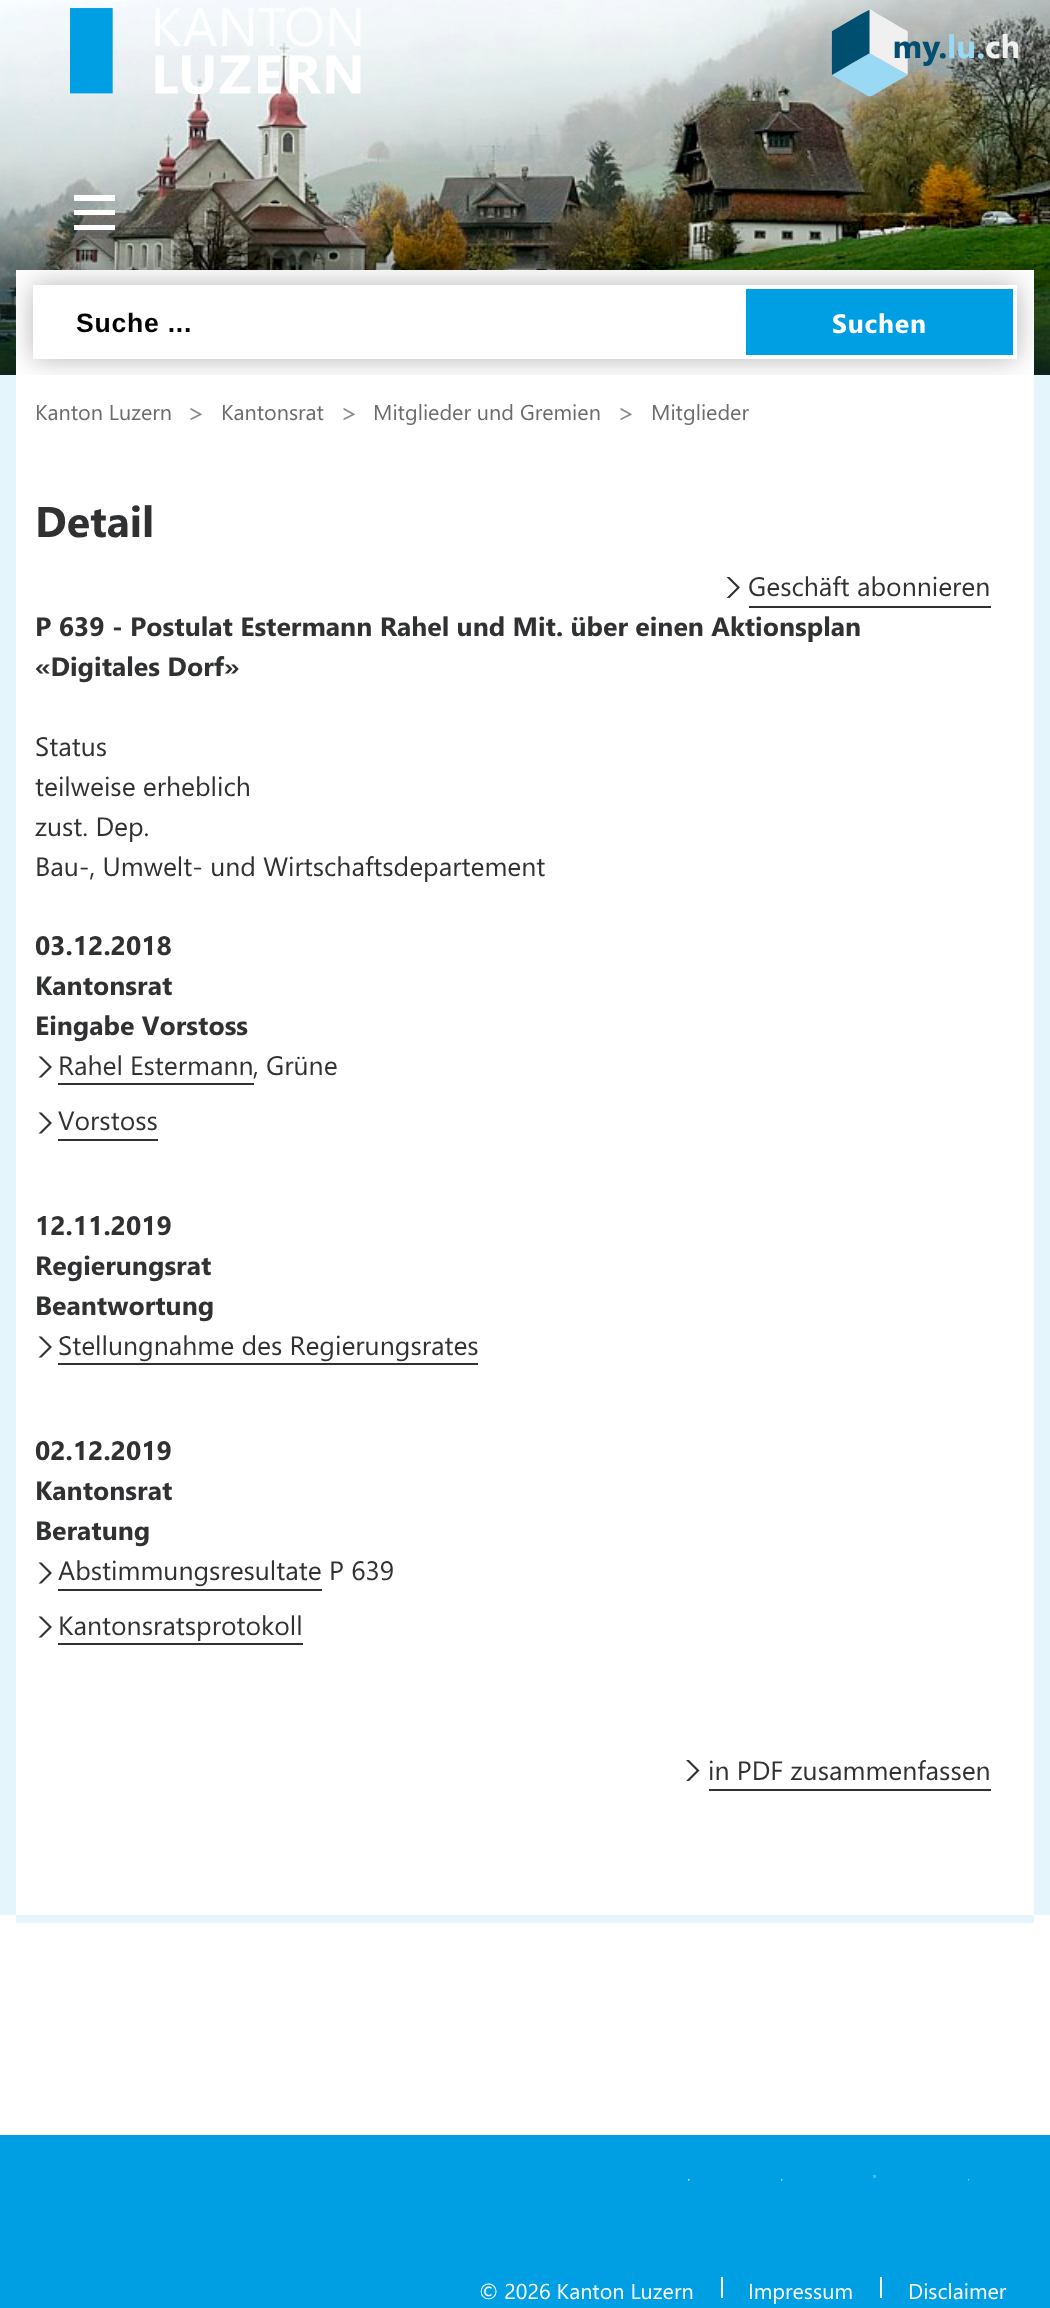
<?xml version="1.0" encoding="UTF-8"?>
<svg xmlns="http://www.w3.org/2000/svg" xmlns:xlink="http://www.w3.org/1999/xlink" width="1050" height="2308">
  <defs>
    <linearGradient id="g1" gradientUnits="userSpaceOnUse" x1="525" y1="375" x2="525" y2="-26"><stop offset="0" stop-color="#000000" stop-opacity="0.85" /><stop offset="0.38" stop-color="#000000" stop-opacity="0" /></linearGradient>
    <clipPath id="clip1"><rect x="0" y="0" width="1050" height="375" /></clipPath>
  </defs>
  <rect width="100%" height="100%" fill="#ffffff" />
  <image x="0" y="0" width="1050" height="375" xlink:href="image1.png" />
  <image x="70" y="7" width="291" height="88" xlink:href="image2.png" />
  <image x="831" y="9" width="188" height="88" xlink:href="image3.png" />
  <rect y="226" width="1050" height="149" fill="url(#g1)" />
  <path d="M 74 195 v 6 h 41 v -6 z m 0 15 v 5 h 41 v -5 z m 0 15 v 5 h 41 v -5 z" fill="#ffffff" />
  <rect x="16" y="270" width="1018" height="105" fill="#ffffff" />
  <g clip-path="url(#clip1)">
    <rect x="33" y="285" width="984" height="74" fill="#000000" fill-opacity="0.29" filter="blur(14px)" />
  </g>
  <rect x="33" y="285" width="984" height="74" fill="#ffffff" />
  <rect x="746" y="289" width="267" height="66" fill="#009fe3" />
  <rect x="16" y="1915" width="1018" height="8" fill="#e6f5fc" />
  <rect y="289" width="16" height="1626" fill="#009fe3" fill-opacity="0.1" />
  <rect x="1034" y="289" width="16" height="1626" fill="#009fe3" fill-opacity="0.1" />
  <path d="M 737 587.5 l -10.5 10.5 h 3 l 10.5 -10.5 l -10.5 -10.5 h -3 z" fill="#303133" />
  <rect x="749" y="606" width="242" height="2" fill="#303133" />
  <path d="M 49 1067 l -10.5 10.5 h 3 l 10.5 -10.5 l -10.5 -10.5 h -3 z" fill="#303133" />
  <rect x="58" y="1083" width="196" height="2" fill="#303133" />
  <path d="M 49 1123 l -10.5 10.5 h 3 l 10.5 -10.5 l -10.5 -10.5 h -3 z" fill="#303133" />
  <rect x="58" y="1139" width="100" height="2" fill="#303133" />
  <path d="M 49 1347 l -10.5 10.5 h 3 l 10.5 -10.5 l -10.5 -10.5 h -3 z" fill="#303133" />
  <rect x="58" y="1363" width="420" height="2" fill="#303133" />
  <path d="M 49 1573 l -10.5 10.5 h 3 l 10.5 -10.5 l -10.5 -10.5 h -3 z" fill="#303133" />
  <rect x="58" y="1589" width="264" height="2" fill="#303133" />
  <path d="M 49 1627 l -10.5 10.5 h 3 l 10.5 -10.5 l -10.5 -10.5 h -3 z" fill="#303133" />
  <rect x="58" y="1643" width="245" height="2" fill="#303133" />
  <path d="M 696.5 1770.5 l -10.5 10.5 h 3 l 10.5 -10.5 l -10.5 -10.5 h -3 z" fill="#303133" />
  <rect x="709" y="1789" width="282" height="2" fill="#303133" />
  <rect y="2135" width="1050" height="173" fill="#009fe3" />
  <rect x="873" y="2175" width="3" height="3" fill="#45b9eb" />
  <image x="688" y="2179" width="2" height="2" xlink:href="image4.png" />
  <image x="781" y="2179" width="2" height="2" xlink:href="image5.png" />
  <image x="968" y="2179" width="2" height="2" xlink:href="image6.png" />
  <rect x="721" y="2277" width="2" height="21" fill="#ffffff" />
  <rect x="880" y="2277" width="2" height="21" fill="#ffffff" />
  <text x="76" y="332" style="font-family: Liberation Sans; font-size: 26.6px; font-weight: bold; letter-spacing: 0.75px; fill: #000000">Suche ...</text>
  <text x="832" y="333" style="font-family: Segoe UI; font-size: 26.6px; font-weight: bold; letter-spacing: 0.75px; fill: #ffffff">Suchen</text>
  <text x="35" y="420" style="font-family: Segoe UI; font-size: 21.6px; fill: #6b6b6b">Kanton Luzern</text>
  <text x="187" y="422" style="font-family: Segoe UI; font-size: 26.6px; fill: #898989">&gt;</text>
  <text x="221" y="420" style="font-family: Segoe UI; font-size: 21.6px; fill: #6b6b6b">Kantonsrat</text>
  <text x="340" y="422" style="font-family: Segoe UI; font-size: 26.6px; fill: #898989">&gt;</text>
  <text x="373" y="420" style="font-family: Segoe UI; font-size: 21.6px; fill: #6b6b6b">Mitglieder und Gremien</text>
  <text x="617" y="422" style="font-family: Segoe UI; font-size: 26.6px; fill: #898989">&gt;</text>
  <text x="651" y="420" style="font-family: Segoe UI; font-size: 21.6px; fill: #6b6b6b">Mitglieder</text>
  <text x="35" y="537" style="font-family: Segoe UI; font-size: 43px; font-weight: bold; fill: #303133">Detail</text>
  <text x="748" y="596" style="font-family: Segoe UI; font-size: 26.6px; fill: #303133">Geschäft abonnieren</text>
  <text x="35" y="636" style="font-family: Segoe UI; font-size: 26.6px; font-weight: bold; fill: #303133">P 639 - Postulat Estermann Rahel und Mit. über einen Aktionsplan</text>
  <text x="35" y="676" style="font-family: Segoe UI; font-size: 26.6px; font-weight: bold; fill: #303133">«Digitales Dorf»</text>
  <text x="35" y="756" style="font-family: Segoe UI; font-size: 26.6px; fill: #303133">Status</text>
  <text x="35" y="796" style="font-family: Segoe UI; font-size: 26.6px; fill: #303133">teilweise erheblich</text>
  <text x="35" y="836" style="font-family: Segoe UI; font-size: 26.6px; fill: #303133">zust. Dep.</text>
  <text x="35" y="876" style="font-family: Segoe UI; font-size: 26.6px; fill: #303133">Bau-, Umwelt- und Wirtschaftsdepartement</text>
  <text x="35" y="955" style="font-family: Segoe UI; font-size: 26.6px; font-weight: bold; fill: #303133">03.12.2018</text>
  <text x="35" y="995" style="font-family: Segoe UI; font-size: 26.6px; font-weight: bold; fill: #303133">Kantonsrat</text>
  <text x="35" y="1035" style="font-family: Segoe UI; font-size: 26.6px; font-weight: bold; fill: #303133">Eingabe Vorstoss</text>
  <text x="58" y="1075" style="font-family: Segoe UI; font-size: 26.6px; fill: #303133">Rahel Estermann</text>
  <text x="253" y="1075" style="font-family: Segoe UI; font-size: 26.6px; fill: #303133">, Grüne</text>
  <text x="58" y="1130" style="font-family: Segoe UI; font-size: 26.6px; fill: #303133">Vorstoss</text>
  <text x="35" y="1235" style="font-family: Segoe UI; font-size: 26.6px; font-weight: bold; fill: #303133">12.11.2019</text>
  <text x="35" y="1275" style="font-family: Segoe UI; font-size: 26.6px; font-weight: bold; fill: #303133">Regierungsrat</text>
  <text x="35" y="1315" style="font-family: Segoe UI; font-size: 26.6px; font-weight: bold; fill: #303133">Beantwortung</text>
  <text x="58" y="1355" style="font-family: Segoe UI; font-size: 26.6px; fill: #303133">Stellungnahme des Regierungsrates</text>
  <text x="35" y="1460" style="font-family: Segoe UI; font-size: 26.6px; font-weight: bold; fill: #303133">02.12.2019</text>
  <text x="35" y="1500" style="font-family: Segoe UI; font-size: 26.6px; font-weight: bold; fill: #303133">Kantonsrat</text>
  <text x="35" y="1540" style="font-family: Segoe UI; font-size: 26.6px; font-weight: bold; fill: #303133">Beratung</text>
  <text x="58" y="1580" style="font-family: Segoe UI; font-size: 26.6px; fill: #303133">Abstimmungsresultate</text>
  <text x="329" y="1580" style="font-family: Segoe UI; font-size: 26.6px; fill: #303133">P 639</text>
  <text x="58" y="1635" style="font-family: Segoe UI; font-size: 26.6px; fill: #303133">Kantonsratsprotokoll</text>
  <text x="708" y="1780" style="font-family: Segoe UI; font-size: 26.6px; fill: #303133">in PDF zusammenfassen</text>
  <text x="479" y="2299" style="font-family: Segoe UI; font-size: 21.6px; fill: #ffffff">© 2026 Kanton Luzern</text>
  <text x="748" y="2299" style="font-family: Segoe UI; font-size: 21.6px; fill: #ffffff">Impressum</text>
  <text x="908" y="2299" style="font-family: Segoe UI; font-size: 21.6px; fill: #ffffff">Disclaimer</text>
</svg>
